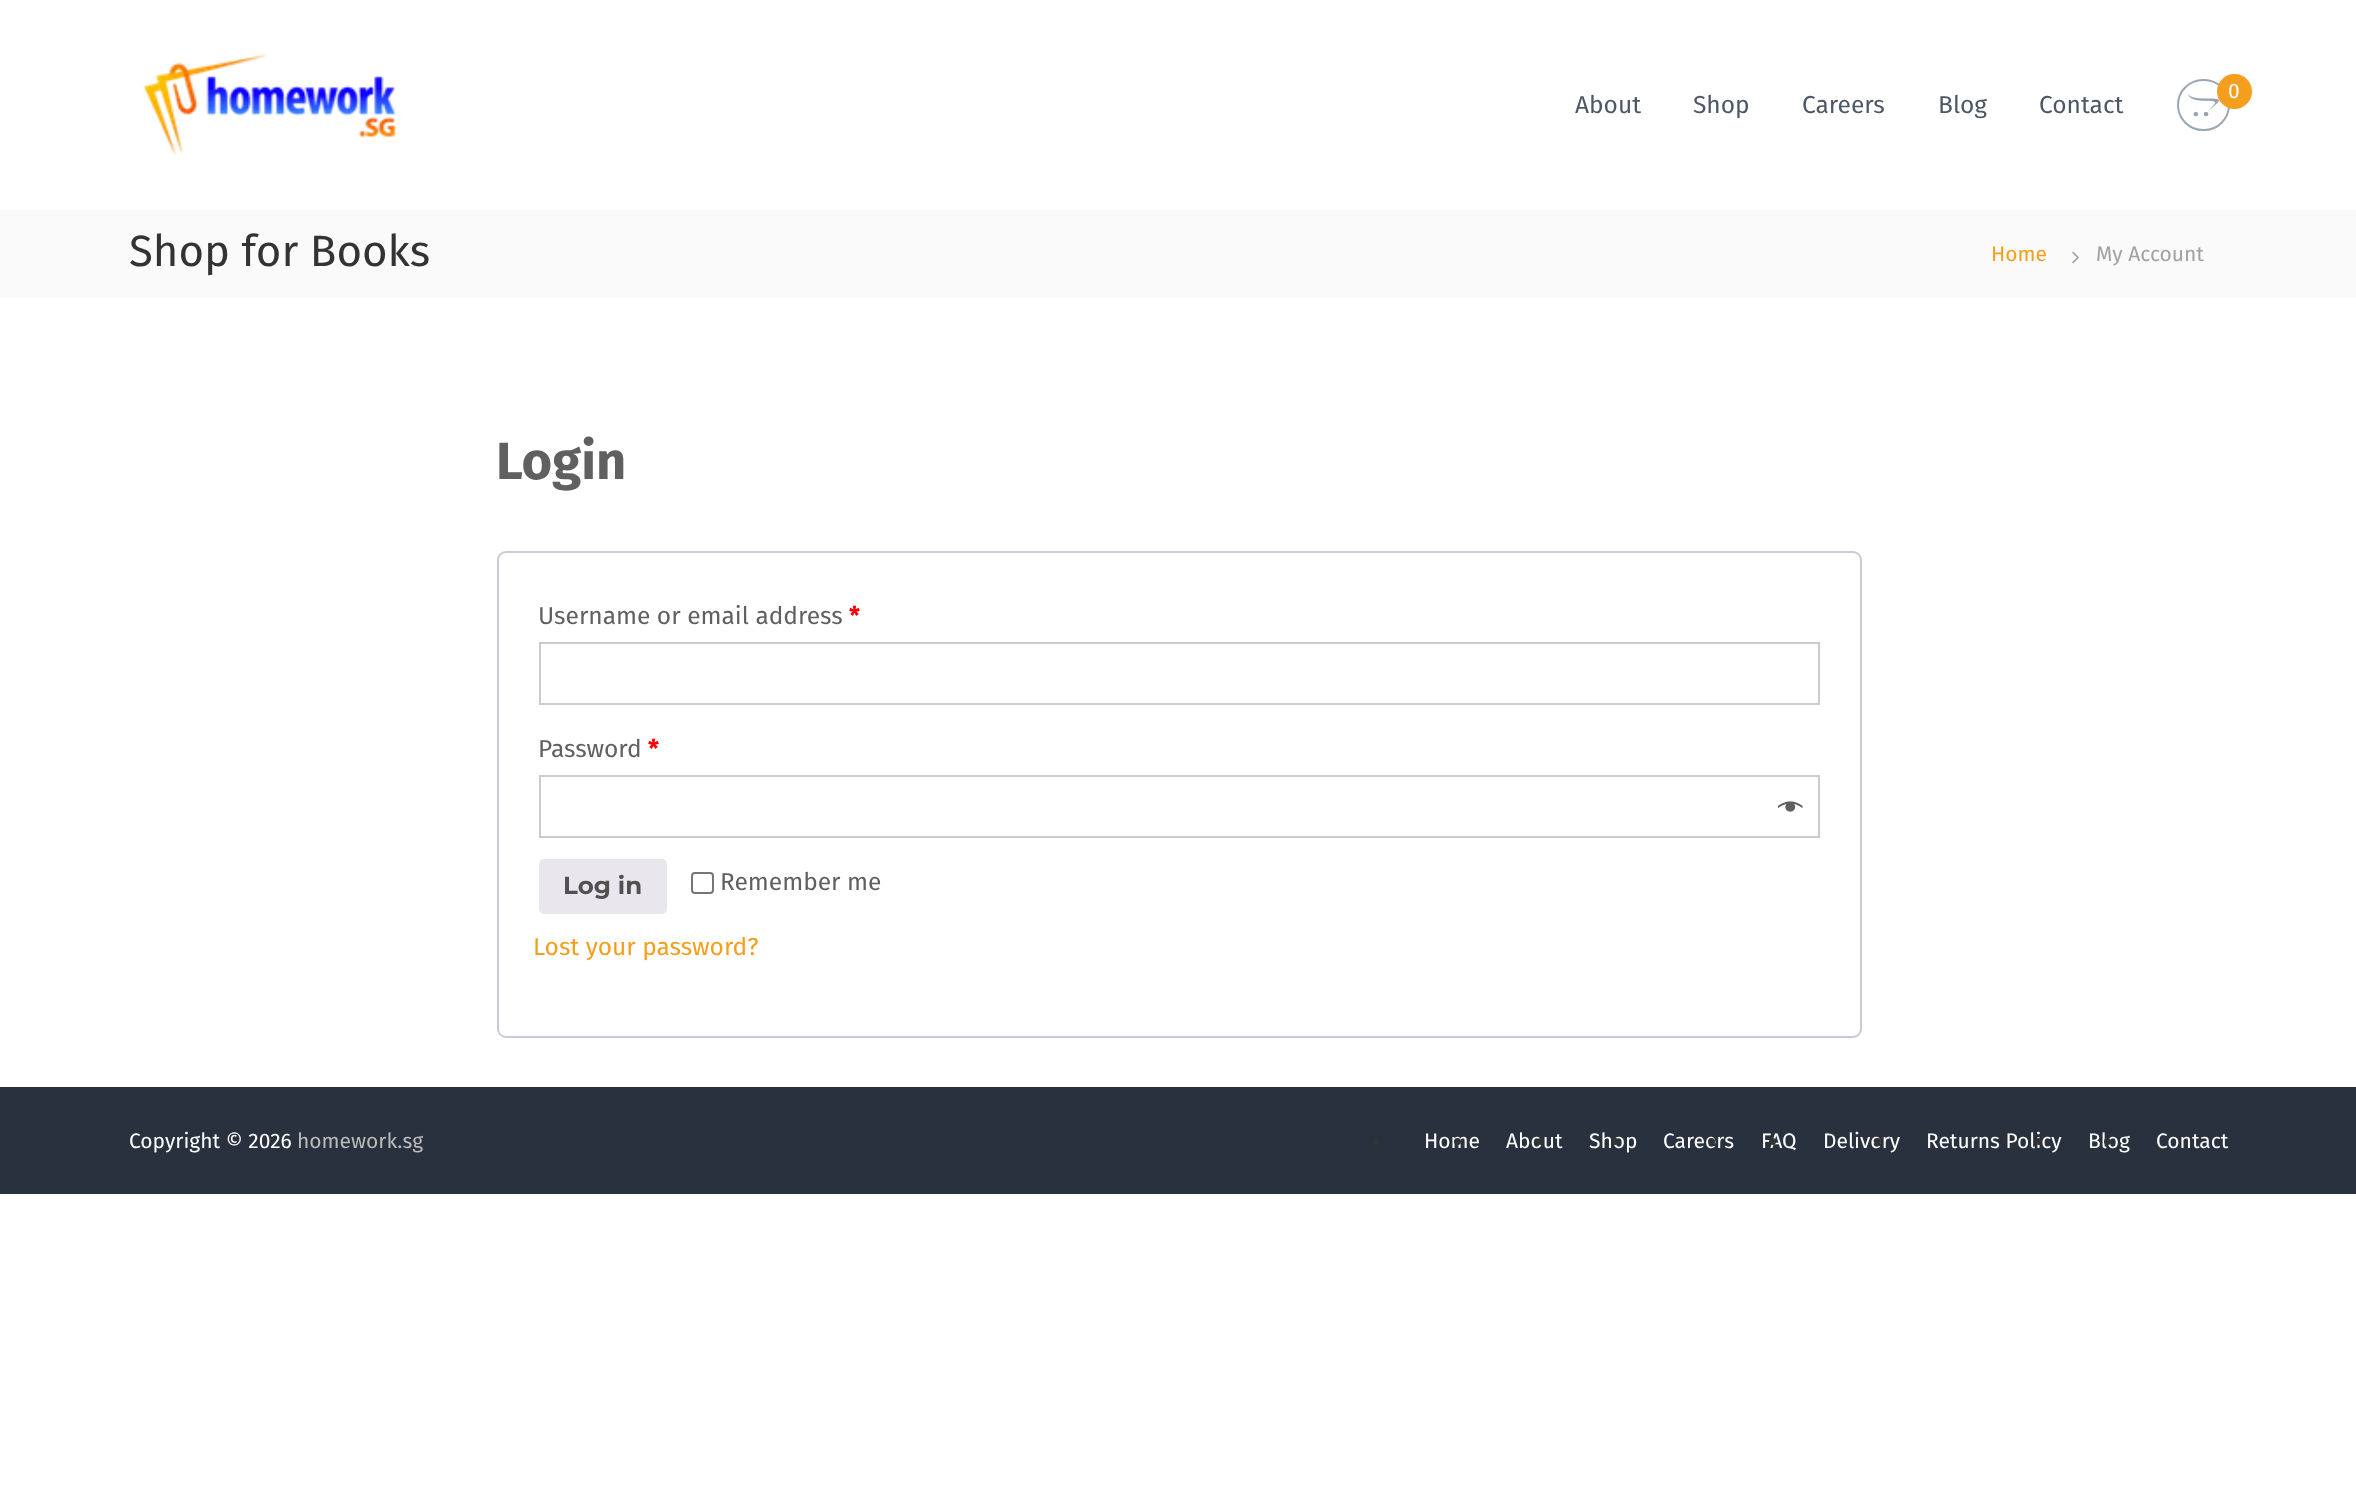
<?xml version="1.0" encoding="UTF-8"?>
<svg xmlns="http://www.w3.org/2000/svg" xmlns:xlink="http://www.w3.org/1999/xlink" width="2356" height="1491">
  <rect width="100%" height="100%" fill="#ffffff" />
  <image x="143" y="54" width="253" height="102" xlink:href="image1.png" />
  <rect x="2178" y="80" width="51" height="50" rx="25" fill="none" stroke="#9ca6b2" stroke-width="2" />
  <image x="2187" y="94" width="32" height="23" xlink:href="image2.png" />
  <circle cx="2234.5" cy="91.5" r="17.5" fill="#f49e1d" />
  <rect y="210" width="2356" height="88" fill="#fafafa" />
  <image x="2072" y="251" width="7" height="13" xlink:href="image3.png" />
  <rect x="498" y="552" width="1363" height="485" rx="8" fill="none" stroke="#cfc8d8" stroke-width="2" />
  <rect x="540" y="643" width="1279" height="61" fill="none" stroke="#cccccc" stroke-width="2" />
  <rect x="540" y="776" width="1279" height="61" fill="none" stroke="#cccccc" stroke-width="2" />
  <image x="1778" y="801" width="25" height="11" xlink:href="image4.png" />
  <rect x="539" y="859" width="128" height="55" rx="5" fill="#e9e6ed" />
  <rect x="692" y="873" width="21" height="20" rx="3" fill="none" stroke="#767676" stroke-width="2" />
  <rect y="1087" width="2356" height="107" fill="#28313d" />
  <circle cx="1375.5" cy="1141.5" r="3.5" fill="#333333" />
  <text x="2228" y="98" style="font-family: Fira Sans; font-size: 21px; fill: #ffffff">0</text>
  <text x="1575" y="113" style="font-family: Fira Sans; font-size: 24.5px; fill: #4c5867">About</text>
  <text x="1693" y="113" style="font-family: Fira Sans; font-size: 24.5px; fill: #4c5867">Shop</text>
  <text x="1802" y="113" style="font-family: Fira Sans; font-size: 24.5px; fill: #4c5867">Careers</text>
  <text x="1938" y="113" style="font-family: Fira Sans; font-size: 24.5px; fill: #4c5867">Blog</text>
  <text x="2039" y="113" style="font-family: Fira Sans; font-size: 24.5px; fill: #4c5867">Contact</text>
  <text x="129" y="266" style="font-family: Fira Sans; font-size: 43.75px; fill: #333333">Shop for Books</text>
  <text x="1991" y="261" style="font-family: Fira Sans; font-size: 21px; fill: #f49e1d">Home</text>
  <text x="2096" y="261" style="font-family: Fira Sans; font-size: 21px; fill: #a1a1a1">My Account</text>
  <text x="496" y="479" style="font-family: Fira Sans; font-size: 52.5px; font-weight: bold; fill: #606060">Login</text>
  <text x="538" y="624" style="font-family: Fira Sans; font-size: 24.5px; fill: #606060">Username or email address</text>
  <text x="849" y="624" style="font-family: Fira Sans; font-size: 24.5px; font-weight: bold; fill: #ff0000">*</text>
  <text x="538" y="757" style="font-family: Fira Sans; font-size: 24.5px; fill: #606060">Password</text>
  <text x="648" y="757" style="font-family: Fira Sans; font-size: 24.5px; font-weight: bold; fill: #ff0000">*</text>
  <text x="563" y="894" style="font-family: Montserrat; font-size: 24.5px; font-weight: bold; fill: #515151">Log in</text>
  <text x="720" y="890" style="font-family: Fira Sans; font-size: 24.5px; fill: #606060">Remember me</text>
  <text x="533" y="955" style="font-family: Fira Sans; font-size: 24.5px; fill: #f49e1d">Lost your password?</text>
  <text x="129" y="1148" style="font-family: Fira Sans; font-size: 21px; fill: #ffffff">Copyright © 2026</text>
  <text x="297" y="1148" style="font-family: Fira Sans; font-size: 21px; fill: #bcbaba">homework.sg</text>
  <text x="1424" y="1148" style="font-family: Fira Sans; font-size: 21px; fill: #ffffff">Home</text>
  <circle cx="1457.5" cy="1141.5" r="3.5" fill="#333333" />
  <text x="1506" y="1148" style="font-family: Fira Sans; font-size: 21px; fill: #ffffff">About</text>
  <circle cx="1540.5" cy="1141.5" r="3.5" fill="#333333" />
  <text x="1589" y="1148" style="font-family: Fira Sans; font-size: 21px; fill: #ffffff">Shop</text>
  <circle cx="1615.5" cy="1141.5" r="3.5" fill="#333333" />
  <text x="1663" y="1148" style="font-family: Fira Sans; font-size: 21px; fill: #ffffff">Careers</text>
  <circle cx="1711.5" cy="1141.5" r="3.5" fill="#333333" />
  <text x="1761" y="1148" style="font-family: Fira Sans; font-size: 21px; fill: #ffffff">FAQ</text>
  <circle cx="1772.5" cy="1141.5" r="3.5" fill="#333333" />
  <text x="1823" y="1148" style="font-family: Fira Sans; font-size: 21px; fill: #ffffff">Delivery</text>
  <circle cx="1877.5" cy="1141.5" r="3.5" fill="#333333" />
  <text x="1926" y="1148" style="font-family: Fira Sans; font-size: 21px; fill: #ffffff">Returns Policy</text>
  <circle cx="2038.5" cy="1141.5" r="3.5" fill="#333333" />
  <text x="2088" y="1148" style="font-family: Fira Sans; font-size: 21px; fill: #ffffff">Blog</text>
  <circle cx="2107.5" cy="1141.5" r="3.5" fill="#333333" />
  <text x="2156" y="1148" style="font-family: Fira Sans; font-size: 21px; fill: #ffffff">Contact</text>
</svg>
